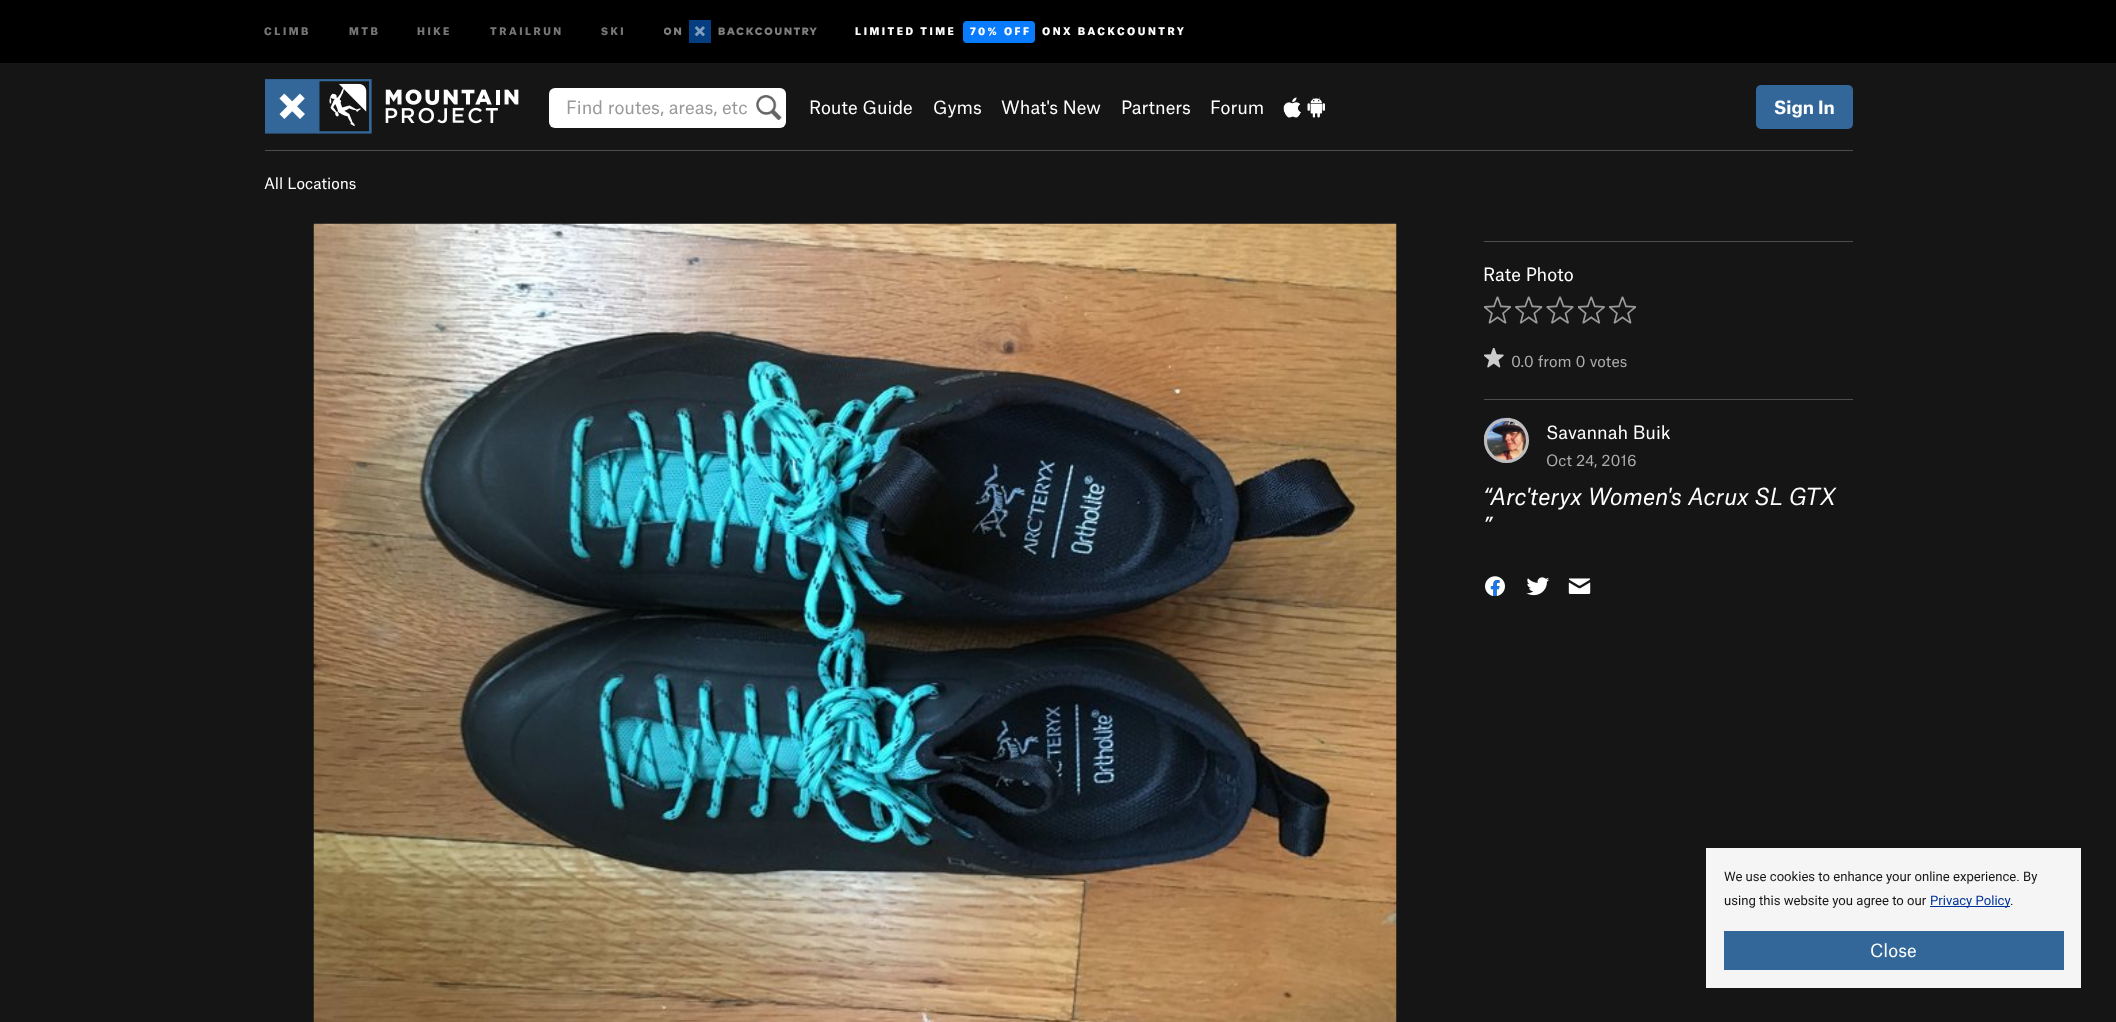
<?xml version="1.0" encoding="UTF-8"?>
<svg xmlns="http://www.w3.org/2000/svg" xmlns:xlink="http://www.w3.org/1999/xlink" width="2116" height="1022">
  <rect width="100%" height="100%" fill="#151515" />
  <rect width="2116" height="63" fill="#000000" />
  <image x="664" y="20" width="153" height="23" xlink:href="image1.png" />
  <rect x="963" y="21" width="72" height="22" rx="4" fill="#087bff" />
  <image x="265" y="79" width="254" height="55" xlink:href="image2.png" />
  <rect x="549" y="88" width="237" height="40" rx="6" fill="#ffffff" />
  <image x="756" y="95" width="26" height="25" xlink:href="image3.png" />
  <image x="1283" y="97" width="18" height="21" xlink:href="image4.png" />
  <image x="1307" y="97" width="18" height="21" xlink:href="image5.png" />
  <rect x="1756" y="85" width="97" height="44" rx="5" fill="#336799" />
  <rect x="265" y="150" width="1588" height="1" fill="#4e4d49" />
  <image x="313" y="223" width="1084" height="799" xlink:href="image6.png" />
  <rect x="1484" y="241" width="369" height="1" fill="#4e4d49" />
  <image x="1484" y="296" width="27" height="28" xlink:href="image7.png" />
  <image x="1515" y="296" width="28" height="28" xlink:href="image8.png" />
  <image x="1546" y="296" width="28" height="28" xlink:href="image9.png" />
  <image x="1578" y="296" width="27" height="28" xlink:href="image10.png" />
  <image x="1609" y="296" width="27" height="28" xlink:href="image7.png" />
  <image x="1484" y="348" width="20" height="20" xlink:href="image11.png" />
  <rect x="1484" y="399" width="369" height="1" fill="#4e4d49" />
  <image x="1483" y="417" width="46" height="46" xlink:href="image12.png" />
  <circle cx="1506.5" cy="440.5" r="21" fill="none" stroke="#bdbdbd" stroke-width="3" />
  <image x="1485" y="576" width="20" height="20" xlink:href="image13.png" />
  <image x="1526" y="577" width="23" height="19" xlink:href="image14.png" />
  <image x="1568" y="578" width="23" height="16" xlink:href="image15.png" />
  <rect x="1706" y="848" width="375" height="140" fill="#f5f5f5" />
  <rect x="1930" y="906" width="80" height="1" fill="#003399" />
  <rect x="1724" y="931" width="340" height="39" fill="#336799" />
  <text x="264" y="35" style="font-family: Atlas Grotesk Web; font-size: 10px; font-weight: 900; letter-spacing: 2.5px; fill: #777777">CLIMB</text>
  <text x="349" y="35" style="font-family: Atlas Grotesk Web; font-size: 10px; font-weight: 900; letter-spacing: 2.5px; fill: #777777">MTB</text>
  <text x="417" y="35" style="font-family: Atlas Grotesk Web; font-size: 10px; font-weight: 900; letter-spacing: 2.5px; fill: #777777">HIKE</text>
  <text x="490" y="35" style="font-family: Atlas Grotesk Web; font-size: 10px; font-weight: 900; letter-spacing: 2.5px; fill: #777777">TRAILRUN</text>
  <text x="601" y="35" style="font-family: Atlas Grotesk Web; font-size: 10px; font-weight: 900; letter-spacing: 2.5px; fill: #777777">SKI</text>
  <text x="855" y="35" style="font-family: Atlas Grotesk Web; font-size: 10px; font-weight: 900; letter-spacing: 2.5px; fill: #ffffff">LIMITED TIME</text>
  <text x="970" y="35" style="font-family: Atlas Grotesk Web; font-size: 10px; font-weight: 900; letter-spacing: 2.5px; fill: #ffffff">70% OFF</text>
  <text x="1042" y="35" style="font-family: Atlas Grotesk Web; font-size: 10px; font-weight: 900; letter-spacing: 2.5px; fill: #ffffff">ONX BACKCOUNTRY</text>
  <text x="566" y="114" style="font-family: Atlas Grotesk Web; font-size: 17.5px; fill: #999999">Find routes, areas, etc</text>
  <text x="809" y="114" style="font-family: Atlas Grotesk Web; font-size: 17.5px; fill: #ffffff">Route Guide</text>
  <text x="933" y="114" style="font-family: Atlas Grotesk Web; font-size: 17.5px; fill: #ffffff">Gyms</text>
  <text x="1001" y="114" style="font-family: Atlas Grotesk Web; font-size: 17.5px; fill: #ffffff">What's New</text>
  <text x="1121" y="114" style="font-family: Atlas Grotesk Web; font-size: 17.5px; fill: #ffffff">Partners</text>
  <text x="1210" y="114" style="font-family: Atlas Grotesk Web; font-size: 17.5px; fill: #ffffff">Forum</text>
  <text x="1774" y="114" style="font-family: Atlas Grotesk Web; font-size: 17.5px; font-weight: bold; fill: #ffffff">Sign In</text>
  <text x="264" y="189" style="font-family: Atlas Grotesk Web; font-size: 15px; fill: #ffffff">All Locations</text>
  <text x="1483" y="281" style="font-family: Atlas Grotesk Web; font-size: 17.5px; fill: #ffffff">Rate Photo</text>
  <text x="1511" y="367" style="font-family: Atlas Grotesk Web; font-size: 15px; fill: #acacac">0.0 from 0 votes</text>
  <text x="1546" y="439" style="font-family: Atlas Grotesk Web; font-size: 17.5px; fill: #ffffff">Savannah Buik</text>
  <text x="1546" y="466" style="font-family: Atlas Grotesk Web; font-size: 15px; fill: #acacac">Oct 24, 2016</text>
  <text x="1483" y="505" style="font-family: Atlas Grotesk Web; font-size: 22.5px; font-style: italic; fill: #ffffff">“</text>
  <text x="1490" y="505" style="font-family: Atlas Grotesk Web; font-size: 22.5px; font-style: italic; fill: #ffffff">Arc'teryx Women's Acrux SL GTX</text>
  <text x="1483" y="534" style="font-family: Atlas Grotesk Web; font-size: 22.5px; font-style: italic; fill: #ffffff">”</text>
  <text x="1724" y="881" style="font-family: Roboto; font-size: 13.1px; fill: #151515">We use cookies to enhance your online experience. By</text>
  <text x="1724" y="905" style="font-family: Roboto; font-size: 13.1px; fill: #151515">using this website you agree to our</text>
  <text x="1930" y="905" style="font-family: Roboto; font-size: 13.1px; fill: #003399">Privacy Policy</text>
  <text x="2010" y="905" style="font-family: Roboto; font-size: 13.1px; fill: #151515">.</text>
  <text x="1870" y="957" style="font-family: Atlas Grotesk Web; font-size: 17.5px; fill: #ffffff">Close</text>
</svg>
